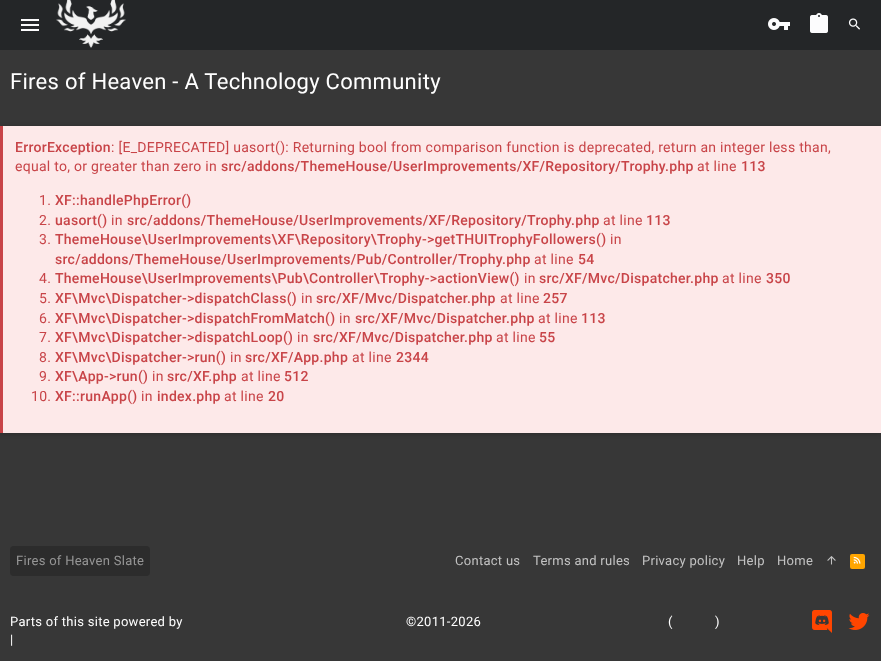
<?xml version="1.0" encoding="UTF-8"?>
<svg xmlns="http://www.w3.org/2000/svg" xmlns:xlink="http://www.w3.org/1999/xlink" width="881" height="661">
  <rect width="100%" height="100%" fill="#373737" />
  <rect width="881" height="50" fill="#242628" />
  <image x="21" y="19" width="18" height="12" xlink:href="image1.png" />
  <image x="56" y="0" width="70" height="48" xlink:href="image2.png" />
  <image x="768" y="18" width="22" height="12" xlink:href="image3.png" />
  <image x="810" y="13" width="18" height="20" xlink:href="image4.png" />
  <image x="848" y="18" width="12" height="12" xlink:href="image5.png" />
  <rect y="127" width="881" height="307" fill="#000000" fill-opacity="0.2" filter="blur(2.5px)" />
  <rect x="3" y="126" width="878" height="307" fill="#fde9e9" />
  <rect y="126" width="3" height="307" fill="#c84448" />
  <rect x="10" y="546" width="140" height="30" rx="4" fill="#2c2c2c" />
  <image x="827" y="556" width="9" height="9" xlink:href="image6.png" />
  <rect x="850" y="554" width="15" height="15" rx="2" fill="#ffa500" />
  <image x="853" y="556" width="8" height="8" xlink:href="image7.png" />
  <image x="812" y="610" width="20" height="23" xlink:href="image8.png" />
  <image x="848" y="613" width="22" height="17" xlink:href="image9.png" />
  <text x="10" y="89" style="font-family: Roboto; font-size: 22px; letter-spacing: 0.28px; fill: #ffffff">Fires of Heaven - A Technology Community</text>
  <text x="15" y="152" style="font-family: Roboto; font-size: 14px; font-weight: 500; letter-spacing: 0.28px; fill: #c84448">ErrorException</text>
  <text x="111" y="152" style="font-family: Roboto; font-size: 14px; letter-spacing: 0.28px; fill: #c84448">: [E_DEPRECATED] uasort(): Returning bool from comparison function is deprecated, return an integer less than,</text>
  <text x="15" y="171" style="font-family: Roboto; font-size: 14px; letter-spacing: 0.28px; fill: #c84448">equal to, or greater than zero in</text>
  <text x="221" y="171" style="font-family: Roboto; font-size: 14px; font-weight: 500; letter-spacing: 0.28px; fill: #c84448">src/addons/ThemeHouse/UserImprovements/XF/Repository/Trophy.php</text>
  <text x="697" y="171" style="font-family: Roboto; font-size: 14px; letter-spacing: 0.28px; fill: #c84448">at line</text>
  <text x="741" y="171" style="font-family: Roboto; font-size: 14px; font-weight: 500; letter-spacing: 0.28px; fill: #c84448">113</text>
  <text x="39" y="205" style="font-family: Roboto; font-size: 14px; letter-spacing: 0.28px; fill: #c84448">1.</text>
  <text x="55" y="205" style="font-family: Roboto; font-size: 14px; font-weight: 500; letter-spacing: 0.28px; fill: #c84448">XF::handlePhpError()</text>
  <text x="39" y="225" style="font-family: Roboto; font-size: 14px; letter-spacing: 0.28px; fill: #c84448">2.</text>
  <text x="55" y="225" style="font-family: Roboto; font-size: 14px; font-weight: 500; letter-spacing: 0.28px; fill: #c84448">uasort()</text>
  <text x="111" y="225" style="font-family: Roboto; font-size: 14px; letter-spacing: 0.28px; fill: #c84448">in</text>
  <text x="127" y="225" style="font-family: Roboto; font-size: 14px; font-weight: 500; letter-spacing: 0.28px; fill: #c84448">src/addons/ThemeHouse/UserImprovements/XF/Repository/Trophy.php</text>
  <text x="603" y="225" style="font-family: Roboto; font-size: 14px; letter-spacing: 0.28px; fill: #c84448">at line</text>
  <text x="646" y="225" style="font-family: Roboto; font-size: 14px; font-weight: 500; letter-spacing: 0.28px; fill: #c84448">113</text>
  <text x="39" y="244" style="font-family: Roboto; font-size: 14px; letter-spacing: 0.28px; fill: #c84448">3.</text>
  <text x="55" y="244" style="font-family: Roboto; font-size: 14px; font-weight: 500; letter-spacing: 0.28px; fill: #c84448">ThemeHouse\UserImprovements\XF\Repository\Trophy-&gt;getTHUITrophyFollowers()</text>
  <text x="610" y="244" style="font-family: Roboto; font-size: 14px; letter-spacing: 0.28px; fill: #c84448">in</text>
  <text x="55" y="264" style="font-family: Roboto; font-size: 14px; font-weight: 500; letter-spacing: 0.28px; fill: #c84448">src/addons/ThemeHouse/UserImprovements/Pub/Controller/Trophy.php</text>
  <text x="534" y="264" style="font-family: Roboto; font-size: 14px; letter-spacing: 0.28px; fill: #c84448">at line</text>
  <text x="578" y="264" style="font-family: Roboto; font-size: 14px; font-weight: 500; letter-spacing: 0.28px; fill: #c84448">54</text>
  <text x="39" y="283" style="font-family: Roboto; font-size: 14px; letter-spacing: 0.28px; fill: #c84448">4.</text>
  <text x="55" y="283" style="font-family: Roboto; font-size: 14px; font-weight: 500; letter-spacing: 0.28px; fill: #c84448">ThemeHouse\UserImprovements\Pub\Controller\Trophy-&gt;actionView()</text>
  <text x="524" y="283" style="font-family: Roboto; font-size: 14px; letter-spacing: 0.28px; fill: #c84448">in</text>
  <text x="539" y="283" style="font-family: Roboto; font-size: 14px; font-weight: 500; letter-spacing: 0.28px; fill: #c84448">src/XF/Mvc/Dispatcher.php</text>
  <text x="722" y="283" style="font-family: Roboto; font-size: 14px; letter-spacing: 0.28px; fill: #c84448">at line</text>
  <text x="766" y="283" style="font-family: Roboto; font-size: 14px; font-weight: 500; letter-spacing: 0.28px; fill: #c84448">350</text>
  <text x="39" y="303" style="font-family: Roboto; font-size: 14px; letter-spacing: 0.28px; fill: #c84448">5.</text>
  <text x="55" y="303" style="font-family: Roboto; font-size: 14px; font-weight: 500; letter-spacing: 0.28px; fill: #c84448">XF\Mvc\Dispatcher-&gt;dispatchClass()</text>
  <text x="301" y="303" style="font-family: Roboto; font-size: 14px; letter-spacing: 0.28px; fill: #c84448">in</text>
  <text x="316" y="303" style="font-family: Roboto; font-size: 14px; font-weight: 500; letter-spacing: 0.28px; fill: #c84448">src/XF/Mvc/Dispatcher.php</text>
  <text x="500" y="303" style="font-family: Roboto; font-size: 14px; letter-spacing: 0.28px; fill: #c84448">at line</text>
  <text x="543" y="303" style="font-family: Roboto; font-size: 14px; font-weight: 500; letter-spacing: 0.28px; fill: #c84448">257</text>
  <text x="39" y="323" style="font-family: Roboto; font-size: 14px; letter-spacing: 0.28px; fill: #c84448">6.</text>
  <text x="55" y="323" style="font-family: Roboto; font-size: 14px; font-weight: 500; letter-spacing: 0.28px; fill: #c84448">XF\Mvc\Dispatcher-&gt;dispatchFromMatch()</text>
  <text x="339" y="323" style="font-family: Roboto; font-size: 14px; letter-spacing: 0.28px; fill: #c84448">in</text>
  <text x="355" y="323" style="font-family: Roboto; font-size: 14px; font-weight: 500; letter-spacing: 0.28px; fill: #c84448">src/XF/Mvc/Dispatcher.php</text>
  <text x="538" y="323" style="font-family: Roboto; font-size: 14px; letter-spacing: 0.28px; fill: #c84448">at line</text>
  <text x="581" y="323" style="font-family: Roboto; font-size: 14px; font-weight: 500; letter-spacing: 0.28px; fill: #c84448">113</text>
  <text x="39" y="342" style="font-family: Roboto; font-size: 14px; letter-spacing: 0.28px; fill: #c84448">7.</text>
  <text x="55" y="342" style="font-family: Roboto; font-size: 14px; font-weight: 500; letter-spacing: 0.28px; fill: #c84448">XF\Mvc\Dispatcher-&gt;dispatchLoop()</text>
  <text x="297" y="342" style="font-family: Roboto; font-size: 14px; letter-spacing: 0.28px; fill: #c84448">in</text>
  <text x="313" y="342" style="font-family: Roboto; font-size: 14px; font-weight: 500; letter-spacing: 0.28px; fill: #c84448">src/XF/Mvc/Dispatcher.php</text>
  <text x="496" y="342" style="font-family: Roboto; font-size: 14px; letter-spacing: 0.28px; fill: #c84448">at line</text>
  <text x="539" y="342" style="font-family: Roboto; font-size: 14px; font-weight: 500; letter-spacing: 0.28px; fill: #c84448">55</text>
  <text x="39" y="362" style="font-family: Roboto; font-size: 14px; letter-spacing: 0.28px; fill: #c84448">8.</text>
  <text x="55" y="362" style="font-family: Roboto; font-size: 14px; font-weight: 500; letter-spacing: 0.28px; fill: #c84448">XF\Mvc\Dispatcher-&gt;run()</text>
  <text x="230" y="362" style="font-family: Roboto; font-size: 14px; letter-spacing: 0.28px; fill: #c84448">in</text>
  <text x="245" y="362" style="font-family: Roboto; font-size: 14px; font-weight: 500; letter-spacing: 0.28px; fill: #c84448">src/XF/App.php</text>
  <text x="352" y="362" style="font-family: Roboto; font-size: 14px; letter-spacing: 0.28px; fill: #c84448">at line</text>
  <text x="396" y="362" style="font-family: Roboto; font-size: 14px; font-weight: 500; letter-spacing: 0.28px; fill: #c84448">2344</text>
  <text x="39" y="381" style="font-family: Roboto; font-size: 14px; letter-spacing: 0.28px; fill: #c84448">9.</text>
  <text x="55" y="381" style="font-family: Roboto; font-size: 14px; font-weight: 500; letter-spacing: 0.28px; fill: #c84448">XF\App-&gt;run()</text>
  <text x="152" y="381" style="font-family: Roboto; font-size: 14px; letter-spacing: 0.28px; fill: #c84448">in</text>
  <text x="167" y="381" style="font-family: Roboto; font-size: 14px; font-weight: 500; letter-spacing: 0.28px; fill: #c84448">src/XF.php</text>
  <text x="241" y="381" style="font-family: Roboto; font-size: 14px; letter-spacing: 0.28px; fill: #c84448">at line</text>
  <text x="284" y="381" style="font-family: Roboto; font-size: 14px; font-weight: 500; letter-spacing: 0.28px; fill: #c84448">512</text>
  <text x="31" y="401" style="font-family: Roboto; font-size: 14px; letter-spacing: 0.28px; fill: #c84448">10.</text>
  <text x="55" y="401" style="font-family: Roboto; font-size: 14px; font-weight: 500; letter-spacing: 0.28px; fill: #c84448">XF::runApp()</text>
  <text x="141" y="401" style="font-family: Roboto; font-size: 14px; letter-spacing: 0.28px; fill: #c84448">in</text>
  <text x="157" y="401" style="font-family: Roboto; font-size: 14px; font-weight: 500; letter-spacing: 0.28px; fill: #c84448">index.php</text>
  <text x="224" y="401" style="font-family: Roboto; font-size: 14px; letter-spacing: 0.28px; fill: #c84448">at line</text>
  <text x="268" y="401" style="font-family: Roboto; font-size: 14px; font-weight: 500; letter-spacing: 0.28px; fill: #c84448">20</text>
  <text x="16" y="565" style="font-family: Roboto; font-size: 13px; letter-spacing: 0.28px; fill: #969696">Fires of Heaven Slate</text>
  <text x="455" y="565" style="font-family: Roboto; font-size: 13px; letter-spacing: 0.28px; fill: #c3c3c3">Contact us</text>
  <text x="533" y="565" style="font-family: Roboto; font-size: 13px; letter-spacing: 0.28px; fill: #c3c3c3">Terms and rules</text>
  <text x="642" y="565" style="font-family: Roboto; font-size: 13px; letter-spacing: 0.28px; fill: #c3c3c3">Privacy policy</text>
  <text x="737" y="565" style="font-family: Roboto; font-size: 13px; letter-spacing: 0.28px; fill: #c3c3c3">Help</text>
  <text x="777" y="565" style="font-family: Roboto; font-size: 13px; letter-spacing: 0.28px; fill: #c3c3c3">Home</text>
  <text x="10" y="626" style="font-family: Roboto; font-size: 13px; letter-spacing: 0.28px; fill: #ffffff">Parts of this site powered by</text>
  <text x="406" y="626" style="font-family: Roboto; font-size: 13px; letter-spacing: 0.28px; fill: #ffffff">©2011-2026</text>
  <text x="668" y="626" style="font-family: Roboto; font-size: 13px; letter-spacing: 0.28px; fill: #ffffff">(</text>
  <text x="715" y="626" style="font-family: Roboto; font-size: 13px; letter-spacing: 0.28px; fill: #ffffff">)</text>
  <text x="10" y="644" style="font-family: Roboto; font-size: 13px; letter-spacing: 0.28px; fill: #ffffff">|</text>
</svg>
